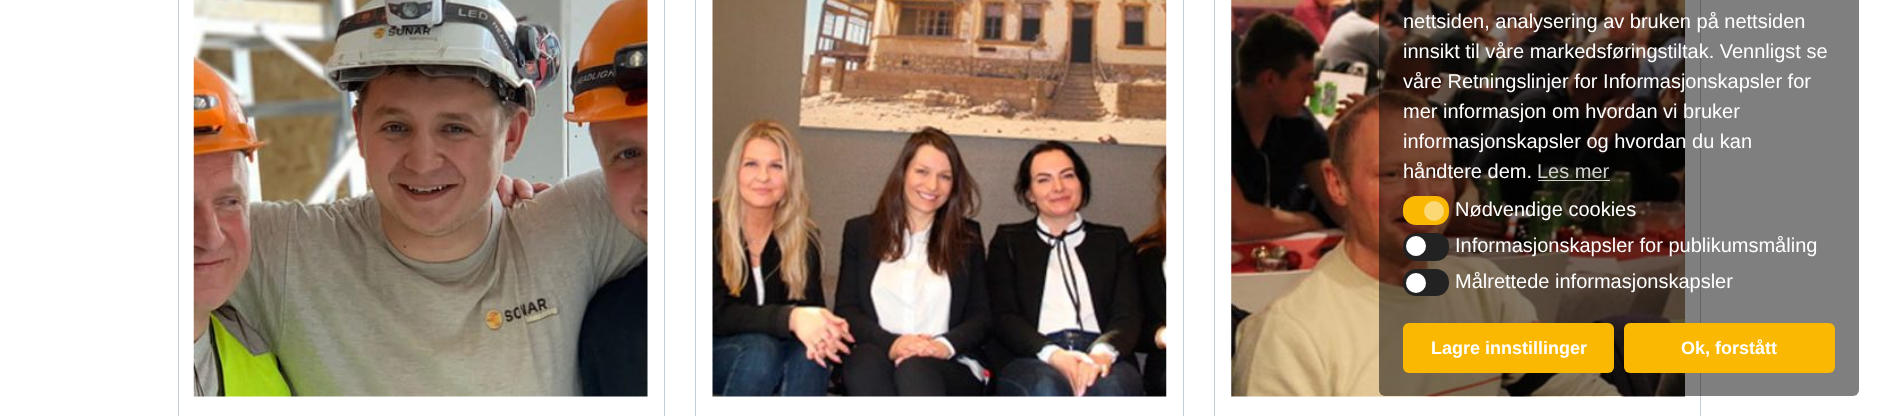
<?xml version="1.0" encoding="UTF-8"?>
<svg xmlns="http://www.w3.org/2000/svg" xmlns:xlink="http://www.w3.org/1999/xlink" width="1878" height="416">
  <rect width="100%" height="100%" fill="#ffffff" />
  <rect x="178.5" y="-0.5" width="486" height="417" fill="none" stroke="#c4cdd6" />
  <image x="193" y="0" width="455" height="397" xlink:href="image1.png" />
  <rect x="695.5" y="-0.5" width="488" height="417" fill="none" stroke="#c4cdd6" />
  <image x="712" y="0" width="455" height="397" xlink:href="image2.png" />
  <rect x="1214.5" y="-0.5" width="486" height="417" fill="none" stroke="#c4cdd6" />
  <image x="1231" y="0" width="454" height="397" xlink:href="image3.png" />
  <rect x="1379" y="-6" width="480" height="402" rx="6" fill="#000000" fill-opacity="0.5" />
  <rect x="1538" y="180" width="72" height="1" fill="#ffffff" fill-opacity="0.8" />
  <rect x="1403" y="196" width="46" height="29" rx="13" fill="#fab802" />
  <circle cx="1434" cy="211" r="10" fill="#fcd874" />
  <rect x="1403" y="233" width="46" height="28" rx="13" fill="#222222" />
  <circle cx="1416" cy="246" r="10" fill="#ffffff" />
  <rect x="1403" y="269" width="46" height="27" rx="13" fill="#222222" />
  <circle cx="1416" cy="283" r="10" fill="#ffffff" />
  <rect x="1403" y="323" width="211" height="50" rx="6" fill="#fab802" />
  <rect x="1624" y="323" width="211" height="50" rx="6" fill="#fab802" />
  <text x="1403" y="28" style="font-family: Liberation Sans; font-size: 20px; fill: #ffffff">nettsiden, analysering av bruken på nettsiden</text>
  <text x="1403" y="58" style="font-family: Liberation Sans; font-size: 20px; fill: #ffffff">innsikt til våre markedsføringstiltak. Vennligst se</text>
  <text x="1403" y="88" style="font-family: Liberation Sans; font-size: 20px; fill: #ffffff">våre Retningslinjer for Informasjonskapsler for</text>
  <text x="1403" y="118" style="font-family: Liberation Sans; font-size: 20px; fill: #ffffff">mer informasjon om hvordan vi bruker</text>
  <text x="1403" y="148" style="font-family: Liberation Sans; font-size: 20px; fill: #ffffff">informasjonskapsler og hvordan du kan</text>
  <text x="1403" y="178" style="font-family: Liberation Sans; font-size: 20px; fill: #ffffff">håndtere dem.</text>
  <text x="1537" y="178" style="font-family: Liberation Sans; font-size: 20px; fill: #d0d1cf">Les mer</text>
  <text x="1455" y="216" style="font-family: Liberation Sans; font-size: 20px; fill: #ffffff">Nødvendige cookies</text>
  <text x="1455" y="252" style="font-family: Liberation Sans; font-size: 20px; fill: #ffffff">Informasjonskapsler for publikumsmåling</text>
  <text x="1455" y="288" style="font-family: Liberation Sans; font-size: 20px; fill: #ffffff">Målrettede informasjonskapsler</text>
  <text x="1431" y="354" style="font-family: Liberation Sans; font-size: 18px; font-weight: bold; fill: #ffffff">Lagre innstillinger</text>
  <text x="1681" y="354" style="font-family: Liberation Sans; font-size: 18px; font-weight: bold; fill: #ffffff">Ok, forstått</text>
</svg>
